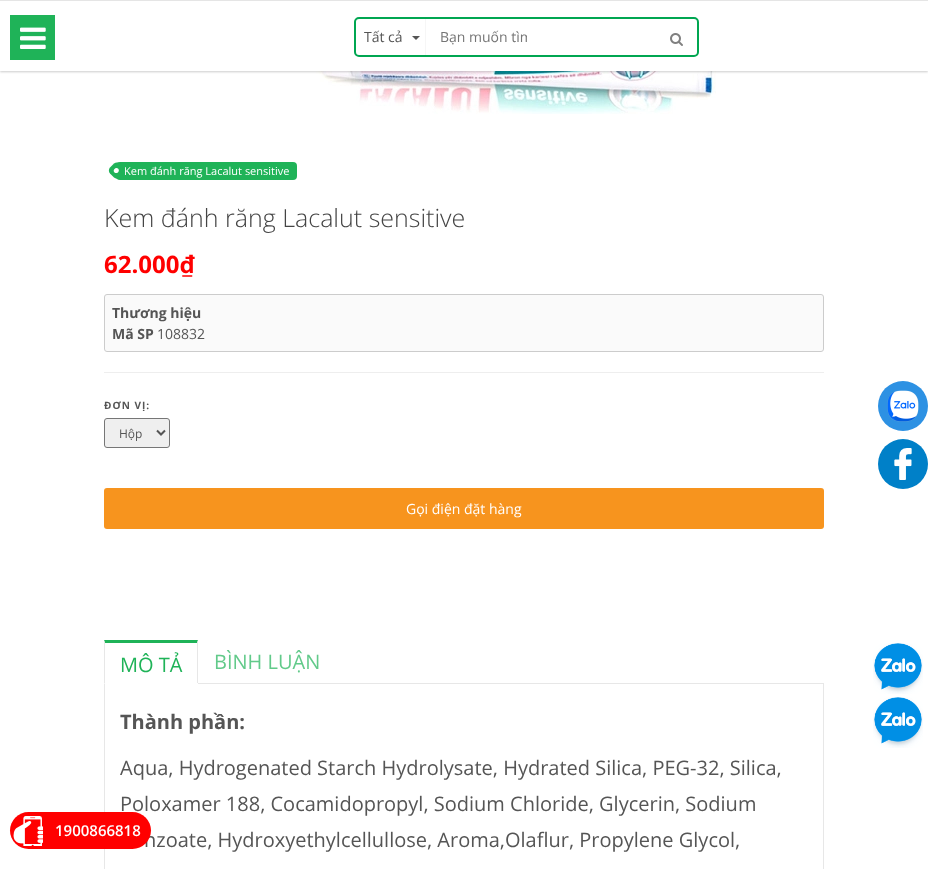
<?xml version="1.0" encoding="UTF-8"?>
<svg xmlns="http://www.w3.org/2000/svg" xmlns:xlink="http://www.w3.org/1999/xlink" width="928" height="869">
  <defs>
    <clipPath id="clip1"><rect x="440" y="27" width="87" height="19" /></clipPath>
  </defs>
  <rect width="100%" height="100%" fill="#ffffff" />
  <image x="316" y="71" width="400" height="43" xlink:href="image3.png" />
  <rect y="1" width="928" height="71" fill="#000000" fill-opacity="0.2" filter="blur(1px)" />
  <rect y="1" width="928" height="70" fill="#ffffff" />
  <rect x="10" y="15" width="45" height="45" fill="#1fb358" />
  <image x="20" y="27" width="26" height="22" xlink:href="image1.png" />
  <rect width="928" height="1" fill="#e5e5e5" />
  <rect x="355" y="18" width="343" height="38" rx="4" fill="none" stroke="#00a651" stroke-width="2" />
  <rect x="425" y="19" width="1" height="36" fill="#f6f6f6" />
  <path d="M 412 36 h 8 l -4 4 z" fill="#555555" />
  <image x="670" y="33" width="13" height="13" xlink:href="image2.png" />
  <rect x="116" y="162" width="181" height="18" rx="4" fill="#1fb358" />
  <path d="M 120 163.5 l 4 4 c 1.5 1.5 1.5 4.5 0 6 l -4 4 c -1.5 1.5 -4.5 1.5 -6 0 l -4 -4 c -1.5 -1.5 -1.5 -4.5 0 -6 l 4 -4 c 1.5 -1.5 4.5 -1.5 6 0 z" fill="#1fb358" />
  <path d="M 118 168.5 c 2.5 2.5 -1 6 -3.5 4 c -2.5 -2.5 1.5 -6 3.5 -4 z" fill="#ffffff" />
  <rect x="104.5" y="294.5" width="719" height="57" rx="2.5" fill="#fafafa" stroke="#cccccc" />
  <rect x="104" y="372" width="720" height="1" fill="#eeeeee" />
  <rect x="104.5" y="418.5" width="65" height="29" rx="2.5" fill="#efefef" stroke="#767676" />
  <path d="M 157 430.5 l 4 4 l 4 -4" fill="none" stroke="#555555" stroke-width="2" />
  <rect x="104" y="488" width="720" height="41" rx="3" fill="#f7941e" />
  <rect x="198" y="683" width="626" height="1" fill="#e7e7e7" />
  <path d="M 104 640 h 94 l -1 3 h -92 z" fill="#1fb358" />
  <path d="M 198 640 v 44 l -1 -1 v -40 z" fill="#e7e7e7" />
  <rect x="197" y="683" width="1" height="1" fill="#ffffff" />
  <path d="M 104 684 v -44 l 1 3 v 40 z" fill="#e7e7e7" />
  <rect x="823" y="684" width="1" height="185" fill="#e7e7e7" />
  <rect x="104" y="684" width="1" height="185" fill="#e7e7e7" />
  <image x="873" y="643" width="50" height="51" xlink:href="image4.png" />
  <image x="873" y="697" width="50" height="51" xlink:href="image4.png" />
  <circle cx="903" cy="406" r="25" fill="#2d91e3" />
  <image x="887" y="390" width="32" height="32" xlink:href="image6.png" />
  <circle cx="903" cy="464" r="25" fill="#0080c8" />
  <image x="894" y="448" width="18" height="32" xlink:href="image7.png" />
  <text x="364" y="42" style="font-family: Open Sans; font-size: 14px; fill: #555555">Tất cả</text>
  <g clip-path="url(#clip1)">
    <text x="440" y="42" style="font-family: Open Sans; font-size: 14px; fill: #757575">Bạn muốn tìm</text>
  </g>
  <text x="124" y="175" style="font-family: Open Sans; font-size: 11px; fill: #ffffff">Kem đánh răng Lacalut sensitive</text>
  <text x="104" y="227" style="font-family: Open Sans; font-size: 25px; font-weight: 300; fill: #444444">Kem đánh răng Lacalut sensitive</text>
  <text x="104" y="273" style="font-family: Open Sans; font-size: 24px; font-weight: bold; fill: #ff0000">62.000₫</text>
  <text x="112" y="318" style="font-family: Open Sans; font-size: 14px; font-weight: bold; fill: #555555">Thương hiệu</text>
  <text x="112" y="339" style="font-family: Open Sans; font-size: 14px; font-weight: bold; fill: #555555">Mã SP</text>
  <text x="157" y="339" style="font-family: Open Sans; font-size: 14px; fill: #555555">108832</text>
  <text x="104" y="409" style="font-family: Open Sans; font-size: 10px; font-weight: bold; letter-spacing: 1px; fill: #555555">ĐƠN VỊ:</text>
  <text x="119" y="438" style="font-family: Open Sans; font-size: 12px; fill: #555555">Hộp</text>
  <text x="406" y="514" style="font-family: Open Sans; font-size: 14px; fill: #ffffff">Gọi điện đặt hàng</text>
  <text x="120" y="672" style="font-family: Open Sans; font-size: 20px; fill: #1fb358">MÔ TẢ</text>
  <text x="214" y="669" style="font-family: Open Sans; font-size: 20px; fill: #62ca8a">BÌNH LUẬN</text>
  <text x="120" y="729" style="font-family: Open Sans; font-size: 20px; font-weight: bold; fill: #555555">Thành phần:</text>
  <text x="120" y="775" style="font-family: Open Sans; font-size: 20px; fill: #555555">Aqua, Hydrogenated Starch Hydrolysate, Hydrated Silica, PEG-32, Silica,</text>
  <text x="120" y="811" style="font-family: Open Sans; font-size: 20px; fill: #555555">Poloxamer 188, Cocamidopropyl, Sodium Chloride, Glycerin, Sodium</text>
  <text x="144" y="847" style="font-family: Open Sans; font-size: 20px; fill: #555555">nzoate, Hydroxyethylcellullose, Aroma,Olaflur, Propylene Glycol,</text>
  <rect x="10" y="812" width="141" height="37" rx="18.5" fill="#ff0000" />
  <image x="13" y="816" width="30" height="30" xlink:href="image5.png" />
  <text x="55" y="836" style="font-family: Open Sans; font-size: 15px; font-weight: 600; fill: #ffffff">1900866818</text>
</svg>
